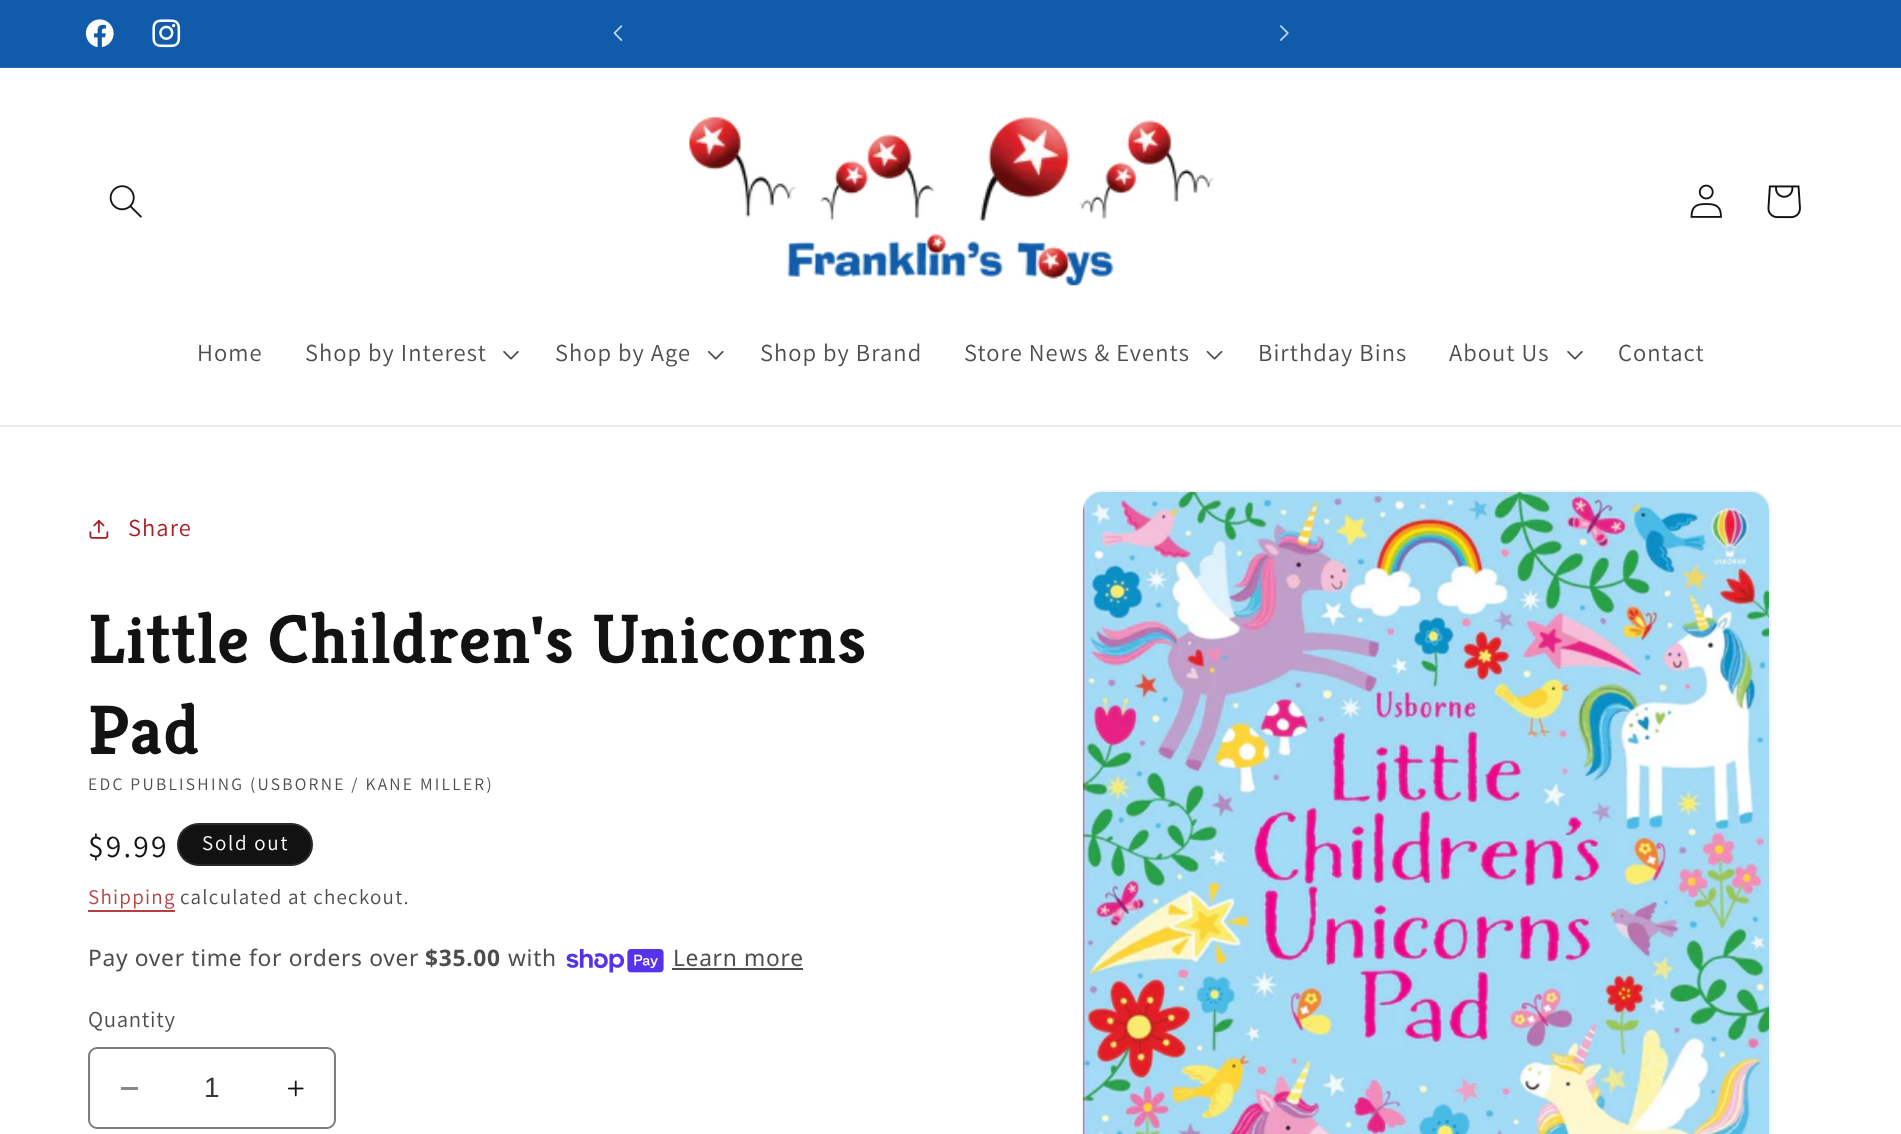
<?xml version="1.0" encoding="UTF-8"?>
<svg xmlns="http://www.w3.org/2000/svg" xmlns:xlink="http://www.w3.org/1999/xlink" width="1901" height="1134">
  <rect width="100%" height="100%" fill="#ffffff" />
  <rect width="1901" height="67" fill="#105caa" />
  <rect y="67" width="1901" height="1" fill="#2369b1" />
  <image x="85" y="19" width="29" height="29" xlink:href="image1.png" />
  <image x="152" y="19" width="29" height="29" xlink:href="image2.png" />
  <image x="613" y="25" width="10" height="16" xlink:href="image3.png" />
  <image x="1280" y="25" width="9" height="16" xlink:href="image4.png" />
  <rect y="425" width="1901" height="2" fill="#ececec" />
  <image x="109" y="185" width="33" height="33" xlink:href="image5.png" />
  <image x="689" y="116" width="525" height="170" xlink:href="image6.png" />
  <image x="1690" y="184" width="32" height="34" xlink:href="image7.png" />
  <image x="1767" y="185" width="34" height="34" xlink:href="image8.png" />
  <image x="503" y="351" width="16" height="9" xlink:href="image9.png" />
  <image x="707" y="350" width="17" height="10" xlink:href="image10.png" />
  <image x="1206" y="350" width="17" height="10" xlink:href="image11.png" />
  <image x="1567" y="351" width="16" height="9" xlink:href="image9.png" />
  <image x="89" y="520" width="20" height="19" xlink:href="image12.png" />
  <rect x="177" y="823" width="136" height="43" rx="21.5" fill="#121212" />
  <rect x="178" y="824" width="134" height="41" rx="20.5" fill="none" stroke="#ffffff" stroke-opacity="0.1" stroke-width="2" />
  <rect x="88" y="910" width="87" height="2" fill="#b64043" />
  <image x="566" y="949" width="98" height="24" xlink:href="image13.png" />
  <rect x="672" y="968" width="131" height="2" fill="#4d4d4d" />
  <rect x="121" y="1087" width="17" height="3" fill="#898989" />
  <image x="287" y="1080" width="17" height="17" xlink:href="image14.png" />
  <rect x="89" y="1048" width="246" height="80" rx="8" fill="none" stroke="#7d7d7d" stroke-width="2" />
  <rect x="1083" y="491" width="687" height="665" rx="20" fill="none" stroke="#f3f3f3" stroke-width="2" />
  <image x="1083" y="492" width="686" height="642" xlink:href="image15.png" />
  <text x="197" y="361" style="font-family: Assistant; font-size: 24.5px; letter-spacing: 1.05px; fill: #4d4d4d">Home</text>
  <text x="305" y="361" style="font-family: Assistant; font-size: 24.5px; letter-spacing: 1.05px; fill: #4d4d4d">Shop by Interest</text>
  <text x="555" y="361" style="font-family: Assistant; font-size: 24.5px; letter-spacing: 1.05px; fill: #4d4d4d">Shop by Age</text>
  <text x="760" y="361" style="font-family: Assistant; font-size: 24.5px; letter-spacing: 1.05px; fill: #4d4d4d">Shop by Brand</text>
  <text x="964" y="361" style="font-family: Assistant; font-size: 24.5px; letter-spacing: 1.05px; fill: #4d4d4d">Store News &amp; Events</text>
  <text x="1258" y="361" style="font-family: Assistant; font-size: 24.5px; letter-spacing: 1.05px; fill: #4d4d4d">Birthday Bins</text>
  <text x="1449" y="361" style="font-family: Assistant; font-size: 24.5px; letter-spacing: 1.05px; fill: #4d4d4d">About Us</text>
  <text x="1618" y="361" style="font-family: Assistant; font-size: 24.5px; letter-spacing: 1.05px; fill: #4d4d4d">Contact</text>
  <text x="128" y="536" style="font-family: Assistant; font-size: 24.5px; letter-spacing: 1.05px; fill: #a91e22">Share</text>
  <text x="88" y="663" style="font-family: Kreon; font-size: 70px; font-weight: bold; letter-spacing: 1.05px; fill: #121212">Little Children's Unicorns</text>
  <text x="88" y="754" style="font-family: Kreon; font-size: 70px; font-weight: bold; letter-spacing: 1.05px; fill: #121212">Pad</text>
  <text x="88" y="790" style="font-family: Assistant; font-size: 17.5px; letter-spacing: 2.25px; fill: #4d4d4d">EDC PUBLISHING (USBORNE / KANE MILLER)</text>
  <text x="88" y="857" style="font-family: Assistant; font-size: 31.5px; letter-spacing: 2.25px; fill: #121212">$9.99</text>
  <text x="202" y="850" style="font-family: Assistant; font-size: 21px; letter-spacing: 1.75px; fill: #ffffff">Sold out</text>
  <text x="88" y="904" style="font-family: Assistant; font-size: 21px; letter-spacing: 1.25px; fill: #b64043">Shipping</text>
  <text x="180" y="904" style="font-family: Assistant; font-size: 21px; letter-spacing: 1.25px; fill: #4d4d4d">calculated at checkout.</text>
  <text x="88" y="966" style="font-family: Noto Sans; font-size: 22.75px; letter-spacing: 0.7px; fill: #4d4d4d">Pay over time for orders over</text>
  <text x="425" y="966" style="font-family: Noto Sans; font-size: 22.75px; font-weight: bold; letter-spacing: 0.7px; fill: #4d4d4d">$35.00</text>
  <text x="508" y="966" style="font-family: Noto Sans; font-size: 22.75px; letter-spacing: 0.7px; fill: #4d4d4d">with</text>
  <text x="673" y="966" style="font-family: Noto Sans; font-size: 22.75px; letter-spacing: 0.7px; fill: #4d4d4d">Learn more</text>
  <text x="88" y="1027" style="font-family: Assistant; font-size: 22.75px; letter-spacing: 0.7px; fill: #4d4d4d">Quantity</text>
  <text x="204" y="1097" style="font-family: Liberation Sans; font-size: 28px; fill: #363636">1</text>
</svg>
